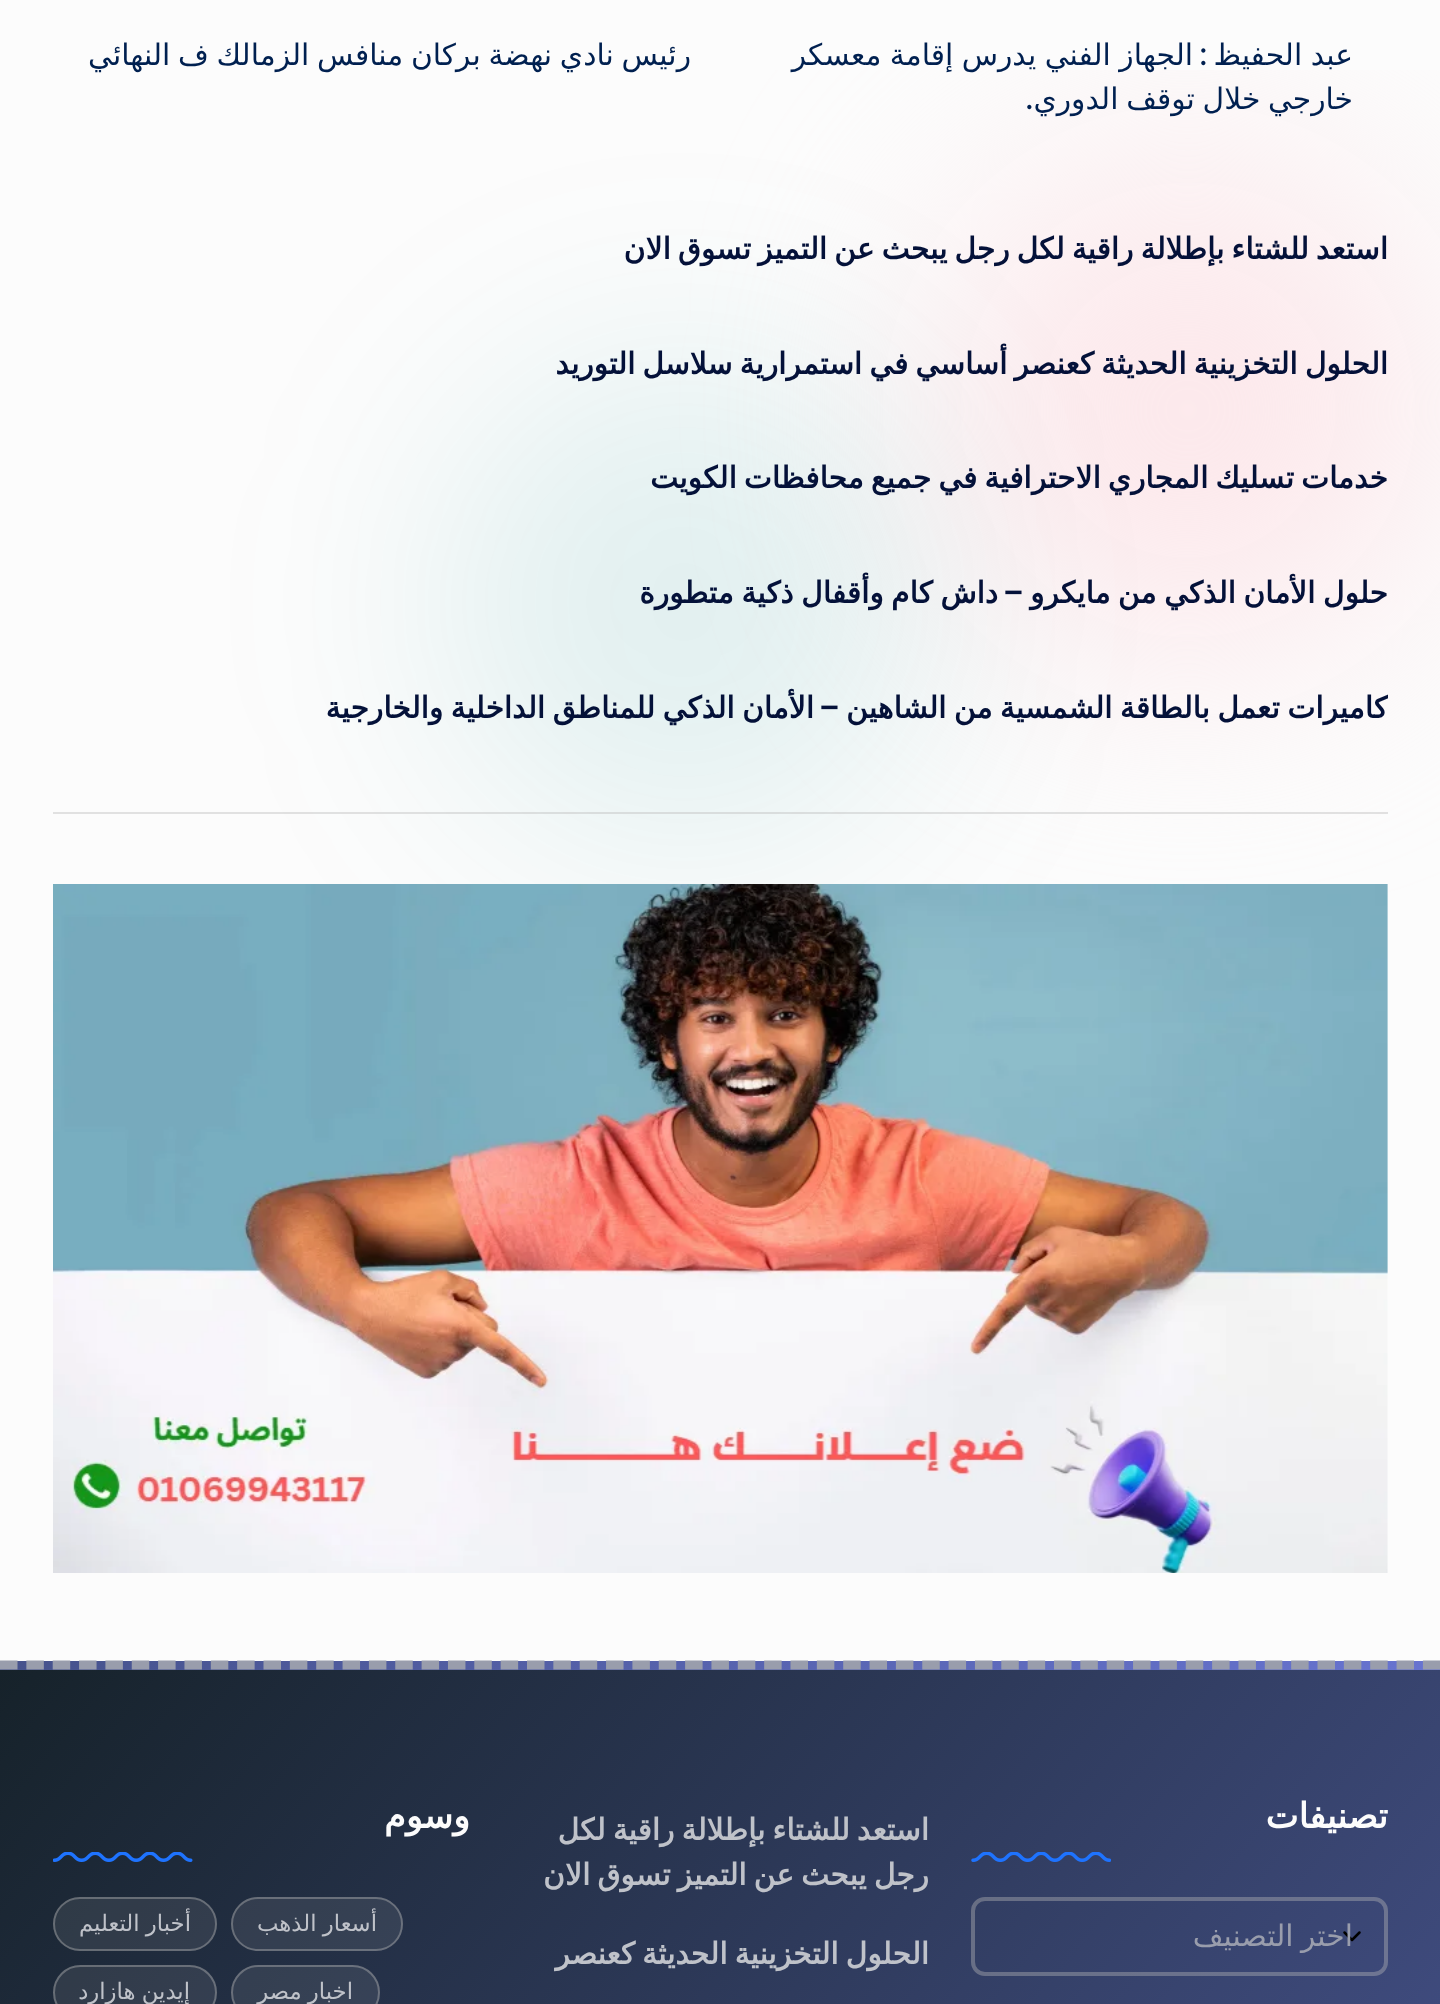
<?xml version="1.0" encoding="UTF-8"?>
<svg xmlns="http://www.w3.org/2000/svg" xmlns:xlink="http://www.w3.org/1999/xlink" width="1440" height="2004">
  <defs>
    <clipPath id="clip1"><rect x="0" y="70" width="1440" height="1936" /></clipPath>
    <linearGradient id="g1" gradientUnits="userSpaceOnUse" x1="-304" y1="-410" x2="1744" y2="1308"><stop offset="0" stop-color="#16222a" /><stop offset="1" stop-color="#6874d1" /></linearGradient>
    <linearGradient id="g2" gradientUnits="userSpaceOnUse" x1="-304" y1="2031" x2="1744" y2="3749"><stop offset="0" stop-color="#16222a" /><stop offset="1" stop-color="#6874d1" /></linearGradient>
    <clipPath id="clip2"><rect x="53" y="210" width="1335" height="602" /></clipPath>
    <clipPath id="clip3"><rect x="1006" y="1918" width="347" height="35" /></clipPath>
  </defs>
  <rect width="100%" height="100%" fill="#fcfcfc" />
  <g clip-path="url(#clip1)">
    <rect x="936" y="158" width="504" height="504" rx="252" fill="#fce8eb" filter="blur(112px)" />
  </g>
  <rect x="432" y="350" width="504" height="504" rx="252" fill="#04868b" fill-opacity="0.1" filter="blur(112px)" />
  <rect x="53" y="812" width="1335" height="2" fill="#b9b9b9" fill-opacity="0.4" />
  <image x="53" y="884" width="1335" height="689" xlink:href="image1.png" />
  <rect y="1661" width="1440" height="9" fill="url(#g1)" />
  <rect y="1670" width="1440" height="334" fill="url(#g2)" />
  <path d="M 0 1665 h 1440" fill="none" stroke="#999dac" stroke-width="8.8" stroke-dasharray="17.5 8.85" />
  <image x="971" y="1852" width="140" height="10" xlink:href="image2.png" />
  <path d="M 1344.5 1932.5 l 7.5 7.5 l 7.5 -7.5" fill="none" stroke="#000000" stroke-width="2.5" stroke-linecap="round" stroke-linejoin="round" />
  <rect x="973" y="1899" width="413" height="75" rx="12" fill="none" stroke="#b9b9b9" stroke-opacity="0.4" stroke-width="4" />
  <image x="53" y="1852" width="140" height="10" xlink:href="image3.png" />
  <rect x="231" y="1897" width="172" height="54" rx="27" fill="#bebebe" fill-opacity="0.12" />
  <rect x="232" y="1898" width="170" height="52" rx="26" fill="none" stroke="#b9b9b9" stroke-opacity="0.4" stroke-width="2" />
  <rect x="53" y="1897" width="164" height="54" rx="27" fill="#bebebe" fill-opacity="0.12" />
  <rect x="54" y="1898" width="162" height="52" rx="26" fill="none" stroke="#b9b9b9" stroke-opacity="0.4" stroke-width="2" />
  <rect x="231" y="1965" width="149" height="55" rx="27.5" fill="#bebebe" fill-opacity="0.12" />
  <rect x="232" y="1966" width="147" height="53" rx="26.5" fill="none" stroke="#b9b9b9" stroke-opacity="0.4" stroke-width="2" />
  <rect x="53" y="1965" width="164" height="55" rx="27.5" fill="#bebebe" fill-opacity="0.12" />
  <rect x="54" y="1966" width="162" height="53" rx="26.5" fill="none" stroke="#b9b9b9" stroke-opacity="0.4" stroke-width="2" />
  <text x="1353" y="65" word-spacing="-1" style="font-family: DejaVu Sans; font-size: 29.75px; direction: rtl; fill: #002050">عبد الحفيظ</text>
  <text x="1207" y="65" style="font-family: Poppins; font-size: 29.75px; font-weight: 500; direction: rtl; fill: #002050">:</text>
  <text x="1193" y="65" word-spacing="-1" style="font-family: DejaVu Sans; font-size: 29.75px; direction: rtl; fill: #002050">الجهاز الفني يدرس إقامة معسكر</text>
  <text x="1353" y="109" word-spacing="-1.75" style="font-family: DejaVu Sans; font-size: 29.75px; direction: rtl; fill: #002050">خارجي خلال توقف الدوري</text>
  <text x="1033" y="109" style="font-family: Poppins; font-size: 29.75px; font-weight: 500; direction: rtl; fill: #002050">.</text>
  <text x="691" y="65" word-spacing="-1.75" style="font-family: DejaVu Sans; font-size: 29.75px; direction: rtl; fill: #002050">رئيس نادي نهضة بركان منافس الزمالك ف النهائي</text>
  <g clip-path="url(#clip2)">
    <text x="1388" y="259" word-spacing="-2.4" style="font-family: DejaVu Sans; font-size: 29.75px; font-weight: bold; direction: rtl; fill: #041139">استعد للشتاء بإطلالة راقية لكل رجل يبحث عن التميز تسوق الان</text>
    <text x="1388" y="374" word-spacing="-2.4" style="font-family: DejaVu Sans; font-size: 29.75px; font-weight: bold; direction: rtl; fill: #041139">الحلول التخزينية الحديثة كعنصر أساسي في استمرارية سلاسل التوريد</text>
    <text x="1388" y="488" word-spacing="-2.4" style="font-family: DejaVu Sans; font-size: 29.75px; font-weight: bold; direction: rtl; fill: #041139">خدمات تسليك المجاري الاحترافية في جميع محافظات الكويت</text>
    <text x="1388" y="603" word-spacing="-2" style="font-family: DejaVu Sans; font-size: 29.75px; font-weight: bold; direction: rtl; fill: #041139">حلول الأمان الذكي من مايكرو</text>
  </g>
  <text x="1024" y="603" style="font-family: Poppins; font-size: 29.75px; font-weight: 600; direction: rtl; fill: #041139">–</text>
  <text x="998" y="603" word-spacing="-2" style="font-family: DejaVu Sans; font-size: 29.75px; font-weight: bold; direction: rtl; fill: #041139">داش كام وأقفال ذكية متطورة</text>
  <g clip-path="url(#clip2)">
    <text x="1388" y="718" word-spacing="-2" style="font-family: DejaVu Sans; font-size: 29.75px; font-weight: bold; direction: rtl; fill: #041139">كاميرات تعمل بالطاقة الشمسية من الشاهين</text>
  </g>
  <text x="840" y="718" style="font-family: Poppins; font-size: 29.75px; font-weight: 600; direction: rtl; fill: #041139">–</text>
  <text x="814" y="718" word-spacing="-2" style="font-family: DejaVu Sans; font-size: 29.75px; font-weight: bold; direction: rtl; fill: #041139">الأمان الذكي للمناطق الداخلية والخارجية</text>
  <text x="1388" y="1828" style="font-family: DejaVu Sans; font-size: 35px; font-weight: bold; direction: rtl; fill: #fcfcfc">تصنيفات</text>
  <g clip-path="url(#clip3)">
    <text x="1353" y="1946" word-spacing="-2" style="font-family: DejaVu Sans; font-size: 29.75px; direction: rtl; fill: #999dac">اختر التصنيف</text>
  </g>
  <text x="929" y="1840" word-spacing="-2.4" style="font-family: DejaVu Sans; font-size: 29.75px; font-weight: bold; direction: rtl; fill: #bfc2c9">استعد للشتاء بإطلالة راقية لكل</text>
  <text x="929" y="1885" word-spacing="-2.4" style="font-family: DejaVu Sans; font-size: 29.75px; font-weight: bold; direction: rtl; fill: #bfc2c9">رجل يبحث عن التميز تسوق الان</text>
  <text x="929" y="1964" word-spacing="-2.4" style="font-family: DejaVu Sans; font-size: 29.75px; font-weight: bold; direction: rtl; fill: #bfc2c9">الحلول التخزينية الحديثة كعنصر</text>
  <text x="470" y="1828" style="font-family: DejaVu Sans; font-size: 35px; font-weight: bold; direction: rtl; fill: #fcfcfc">وسوم</text>
  <text x="377" y="1931" word-spacing="-1" style="font-family: DejaVu Sans; font-size: 22.75px; direction: rtl; fill: #bfc2c9">أسعار الذهب</text>
  <text x="191" y="1931" word-spacing="-1" style="font-family: DejaVu Sans; font-size: 22.75px; direction: rtl; fill: #bfc2c9">أخبار التعليم</text>
  <text x="353" y="1999" word-spacing="-1" style="font-family: DejaVu Sans; font-size: 22.75px; direction: rtl; fill: #bfc2c9">اخبار مصر</text>
  <text x="190" y="1999" word-spacing="-1" style="font-family: DejaVu Sans; font-size: 22.75px; direction: rtl; fill: #bfc2c9">إيدين هازارد</text>
</svg>
